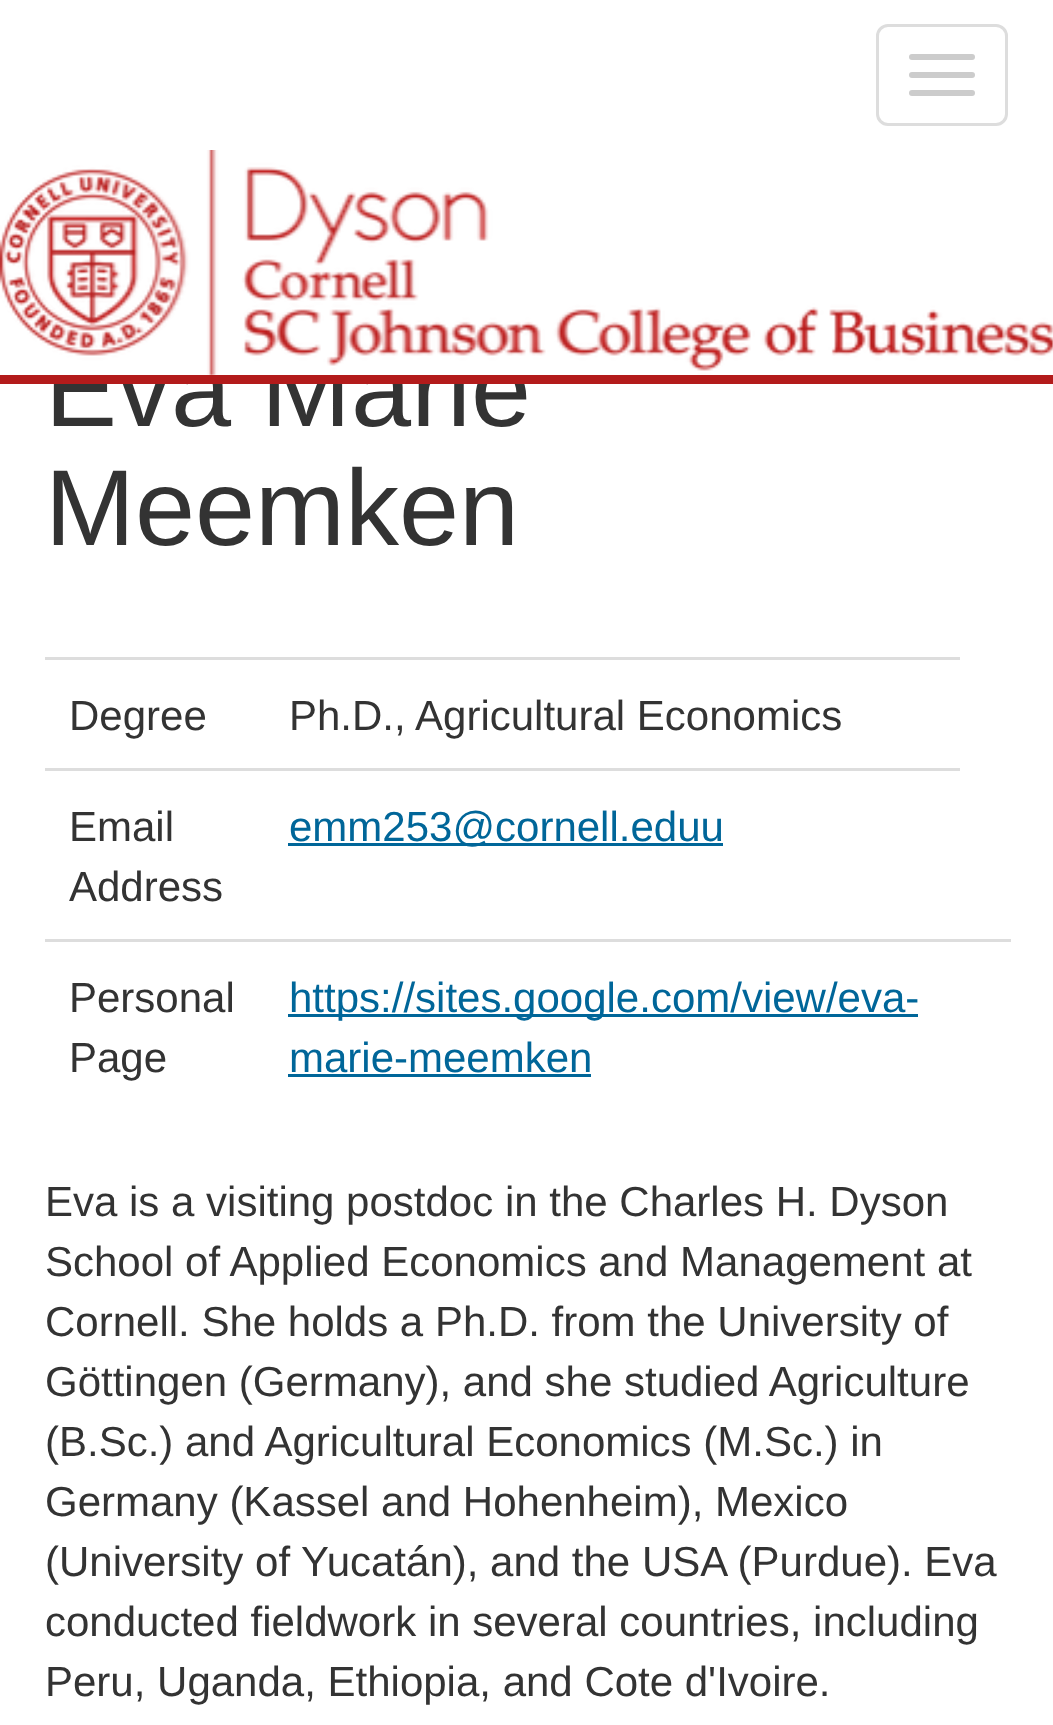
<?xml version="1.0" encoding="UTF-8"?>
<svg xmlns="http://www.w3.org/2000/svg" xmlns:xlink="http://www.w3.org/1999/xlink" width="1053" height="1725">
  <rect width="100%" height="100%" fill="#ffffff" />
  <rect x="877.5" y="25.5" width="129" height="99" rx="10.5" fill="none" stroke="#dddddd" stroke-width="3" />
  <rect x="909" y="54" width="66" height="6" rx="3" fill="#cccccc" />
  <rect x="909" y="72" width="66" height="6" rx="3" fill="#cccccc" />
  <rect x="909" y="90" width="66" height="6" rx="3" fill="#cccccc" />
  <rect x="45" y="657" width="915" height="3" fill="#dddddd" />
  <rect x="45" y="768" width="915" height="3" fill="#dddddd" />
  <rect x="288" y="843" width="435" height="3" fill="#006699" />
  <rect x="45" y="939" width="966" height="3" fill="#dddddd" />
  <rect x="288" y="1014" width="630" height="3" fill="#006699" />
  <rect x="288" y="1074" width="303" height="3" fill="#006699" />
  <text x="45" y="426" style="font-family: Liberation Sans; font-size: 108px; fill: #333333">Eva Marie</text>
  <rect x="53" y="347" width="467" height="28" fill="#ffffff" />
  <image x="0" y="150" width="1053" height="225" xlink:href="image1.png" />
  <rect y="375" width="1053" height="9" fill="#b31b1b" />
  <text x="45" y="545" style="font-family: Liberation Sans; font-size: 108px; fill: #333333">Meemken</text>
  <text x="69" y="730" style="font-family: Liberation Sans; font-size: 42px; fill: #333333">Degree</text>
  <text x="289" y="730" style="font-family: Liberation Sans; font-size: 42px; fill: #333333">Ph.D., Agricultural Economics</text>
  <text x="69" y="841" style="font-family: Liberation Sans; font-size: 42px; fill: #333333">Email</text>
  <text x="69" y="901" style="font-family: Liberation Sans; font-size: 42px; fill: #333333">Address</text>
  <text x="289" y="841" style="font-family: Liberation Sans; font-size: 42px; fill: #006699">emm253@cornell.eduu</text>
  <text x="69" y="1012" style="font-family: Liberation Sans; font-size: 42px; fill: #333333">Personal</text>
  <text x="69" y="1072" style="font-family: Liberation Sans; font-size: 42px; fill: #333333">Page</text>
  <text x="289" y="1012" style="font-family: Liberation Sans; font-size: 42px; fill: #006699">https://sites.google.com/view/eva-</text>
  <text x="289" y="1072" style="font-family: Liberation Sans; font-size: 42px; fill: #006699">marie-meemken</text>
  <text x="45" y="1216" style="font-family: Liberation Sans; font-size: 42px; fill: #333333">Eva is a visiting postdoc in the Charles H. Dyson</text>
  <text x="45" y="1276" style="font-family: Liberation Sans; font-size: 42px; fill: #333333">School of Applied Economics and Management at</text>
  <text x="45" y="1336" style="font-family: Liberation Sans; font-size: 42px; fill: #333333">Cornell. She holds a Ph.D. from the University of</text>
  <text x="45" y="1396" style="font-family: Liberation Sans; font-size: 42px; fill: #333333">Göttingen (Germany), and she studied Agriculture</text>
  <text x="45" y="1456" style="font-family: Liberation Sans; font-size: 42px; fill: #333333">(B.Sc.) and Agricultural Economics (M.Sc.) in</text>
  <text x="45" y="1516" style="font-family: Liberation Sans; font-size: 42px; fill: #333333">Germany (Kassel and Hohenheim), Mexico</text>
  <text x="45" y="1576" style="font-family: Liberation Sans; font-size: 42px; fill: #333333">(University of Yucatán), and the USA (Purdue). Eva</text>
  <text x="45" y="1636" style="font-family: Liberation Sans; font-size: 42px; fill: #333333">conducted fieldwork in several countries, including</text>
  <text x="45" y="1696" style="font-family: Liberation Sans; font-size: 42px; fill: #333333">Peru, Uganda, Ethiopia, and Cote d'Ivoire.</text>
</svg>
